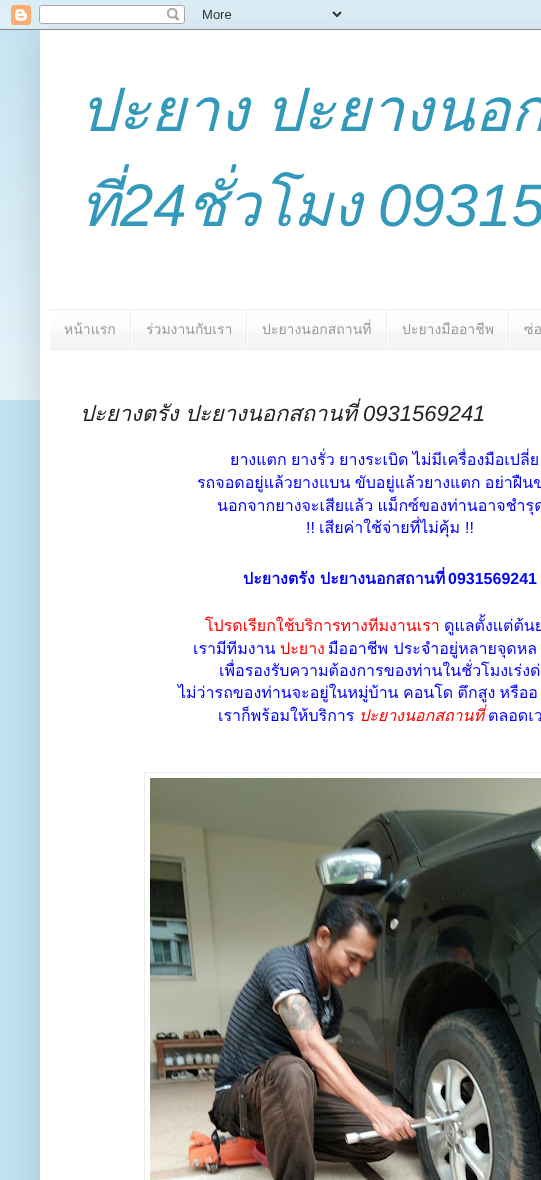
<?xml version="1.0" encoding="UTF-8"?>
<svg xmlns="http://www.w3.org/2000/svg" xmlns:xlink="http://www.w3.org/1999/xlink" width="541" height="1180">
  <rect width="100%" height="100%" fill="#c2e3f2" />
  <image x="0" y="10" width="541" height="390" xlink:href="image2.png" />
  <rect x="40" y="30" width="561" height="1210" fill="#000000" fill-opacity="0.15" filter="blur(20px)" />
  <image x="0" y="0" width="541" height="30" xlink:href="image1.png" />
  <rect x="40" y="30" width="501" height="1150" fill="#ffffff" />
  <rect x="50" y="311" width="491" height="38" fill="#f5f5f5" />
  <image x="50" y="310" width="491" height="24" xlink:href="image3.png" />
  <rect x="50" y="309" width="491" height="1" fill="#eeeeee" />
  <rect x="50" y="349" width="491" height="1" fill="#eeeeee" />
  <rect x="130" y="310" width="1" height="39" fill="#eeeeee" />
  <rect x="246" y="310" width="1" height="39" fill="#eeeeee" />
  <rect x="131" y="321" width="1" height="28" fill="#ffffff" />
  <rect x="386" y="310" width="1" height="39" fill="#eeeeee" />
  <rect x="247" y="321" width="1" height="28" fill="#ffffff" />
  <rect x="508" y="310" width="1" height="39" fill="#eeeeee" />
  <rect x="387" y="321" width="1" height="28" fill="#ffffff" />
  <rect x="509" y="321" width="1" height="28" fill="#ffffff" />
  <rect x="144.5" y="772.5" width="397" height="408" fill="none" stroke="#eeeeee" />
  <image x="150" y="778" width="391" height="402" xlink:href="image4.png" />
  <text x="80" y="131" word-spacing="-4" style="font-family: Loma; font-size: 60px; font-style: italic; fill: #3399bb">ปะยาง ปะยางนอก</text>
  <text x="80" y="226" style="font-family: Loma; font-size: 60px; font-style: italic; fill: #3399bb">ที่</text>
  <text x="120" y="226" style="font-family: Liberation Sans; font-size: 60px; font-style: italic; fill: #3399bb">24</text>
  <text x="186" y="226" style="font-family: Loma; font-size: 60px; font-style: italic; fill: #3399bb">ชั่วโมง</text>
  <text x="378" y="226" style="font-family: Liberation Sans; font-size: 60px; font-style: italic; fill: #3399bb">09315</text>
  <text x="64" y="334" style="font-family: Loma; font-size: 14px; fill: #999999">หน้าแรก</text>
  <text x="146" y="334" style="font-family: Loma; font-size: 14px; fill: #999999">ร่วมงานกับเรา</text>
  <text x="262" y="334" style="font-family: Loma; font-size: 14px; fill: #999999">ปะยางนอกสถานที่</text>
  <text x="402" y="334" style="font-family: Loma; font-size: 14px; fill: #999999">ปะยางมืออาชีพ</text>
  <text x="524" y="334" style="font-family: Loma; font-size: 14px; fill: #999999">ซ่อ</text>
  <text x="80" y="421" word-spacing="-1" style="font-family: Loma; font-size: 22px; font-style: italic; fill: #222222">ปะยางตรัง ปะยางนอกสถานที่</text>
  <text x="363" y="421" style="font-family: Liberation Sans; font-size: 22px; font-style: italic; fill: #222222">0931569241</text>
  <text x="230" y="465" word-spacing="-1" style="font-family: Loma; font-size: 16px; fill: #0000ff">ยางแตก ยางรั่ว ยางระเบิด ไม่มีเครื่องมือเปลี่ย</text>
  <text x="197" y="488" word-spacing="-1" style="font-family: Loma; font-size: 16px; fill: #0000ff">รถจอดอยู่แล้วยางแบน ขับอยู่แล้วยางแตก อย่าฝืนข</text>
  <text x="217" y="511" word-spacing="-1" style="font-family: Loma; font-size: 16px; fill: #0000ff">นอกจากยางจะเสียแล้ว แม็กซ์ของท่านอาจชำรุด</text>
  <text x="306" y="533" style="font-family: Liberation Sans; font-size: 16px; fill: #0000ff">!!</text>
  <text x="319" y="533" style="font-family: Loma; font-size: 16px; fill: #0000ff">เสียค่าใช้จ่ายที่ไม่คุ้ม</text>
  <text x="465" y="533" style="font-family: Liberation Sans; font-size: 16px; fill: #0000ff">!!</text>
  <text x="243" y="584" style="font-family: Loma; font-size: 16px; font-weight: bold; fill: #0000ff">ปะยางตรัง ปะยางนอกสถานที่</text>
  <text x="448" y="584" style="font-family: Liberation Sans; font-size: 16px; font-weight: bold; fill: #0000ff">0931569241</text>
  <text x="205" y="631" style="font-family: Loma; font-size: 16px; fill: #ff0000">โปรดเรียกใช้บริการทางทีมงานเรา</text>
  <text x="444" y="631" style="font-family: Loma; font-size: 16px; fill: #0000ff">ดูแลตั้งแต่ต้นย</text>
  <text x="193" y="654" style="font-family: Loma; font-size: 16px; fill: #0000ff">เรามีทีมงาน</text>
  <text x="280" y="654" style="font-family: Loma; font-size: 16px; fill: #ff0000">ปะยาง</text>
  <text x="328" y="654" style="font-family: Loma; font-size: 16px; fill: #0000ff">มืออาชีพ ประจำอยู่หลายจุดหล</text>
  <text x="219" y="676" style="font-family: Loma; font-size: 16px; fill: #0000ff">เพื่อรองรับความต้องการของท่านในชั่วโมงเร่งด่</text>
  <text x="178" y="698" word-spacing="-1" style="font-family: Loma; font-size: 16px; fill: #0000ff">ไม่ว่ารถของท่านจะอยู่ในหมู่บ้าน คอนโด ตึกสูง หรืออ</text>
  <text x="218" y="721" style="font-family: Loma; font-size: 16px; fill: #0000ff">เราก็พร้อมให้บริการ</text>
  <text x="359" y="721" style="font-family: Loma; font-size: 16px; font-style: italic; fill: #ff0000">ปะยางนอกสถานที่</text>
  <text x="488" y="721" style="font-family: Loma; font-size: 16px; fill: #0000ff">ตลอดเว</text>
</svg>
